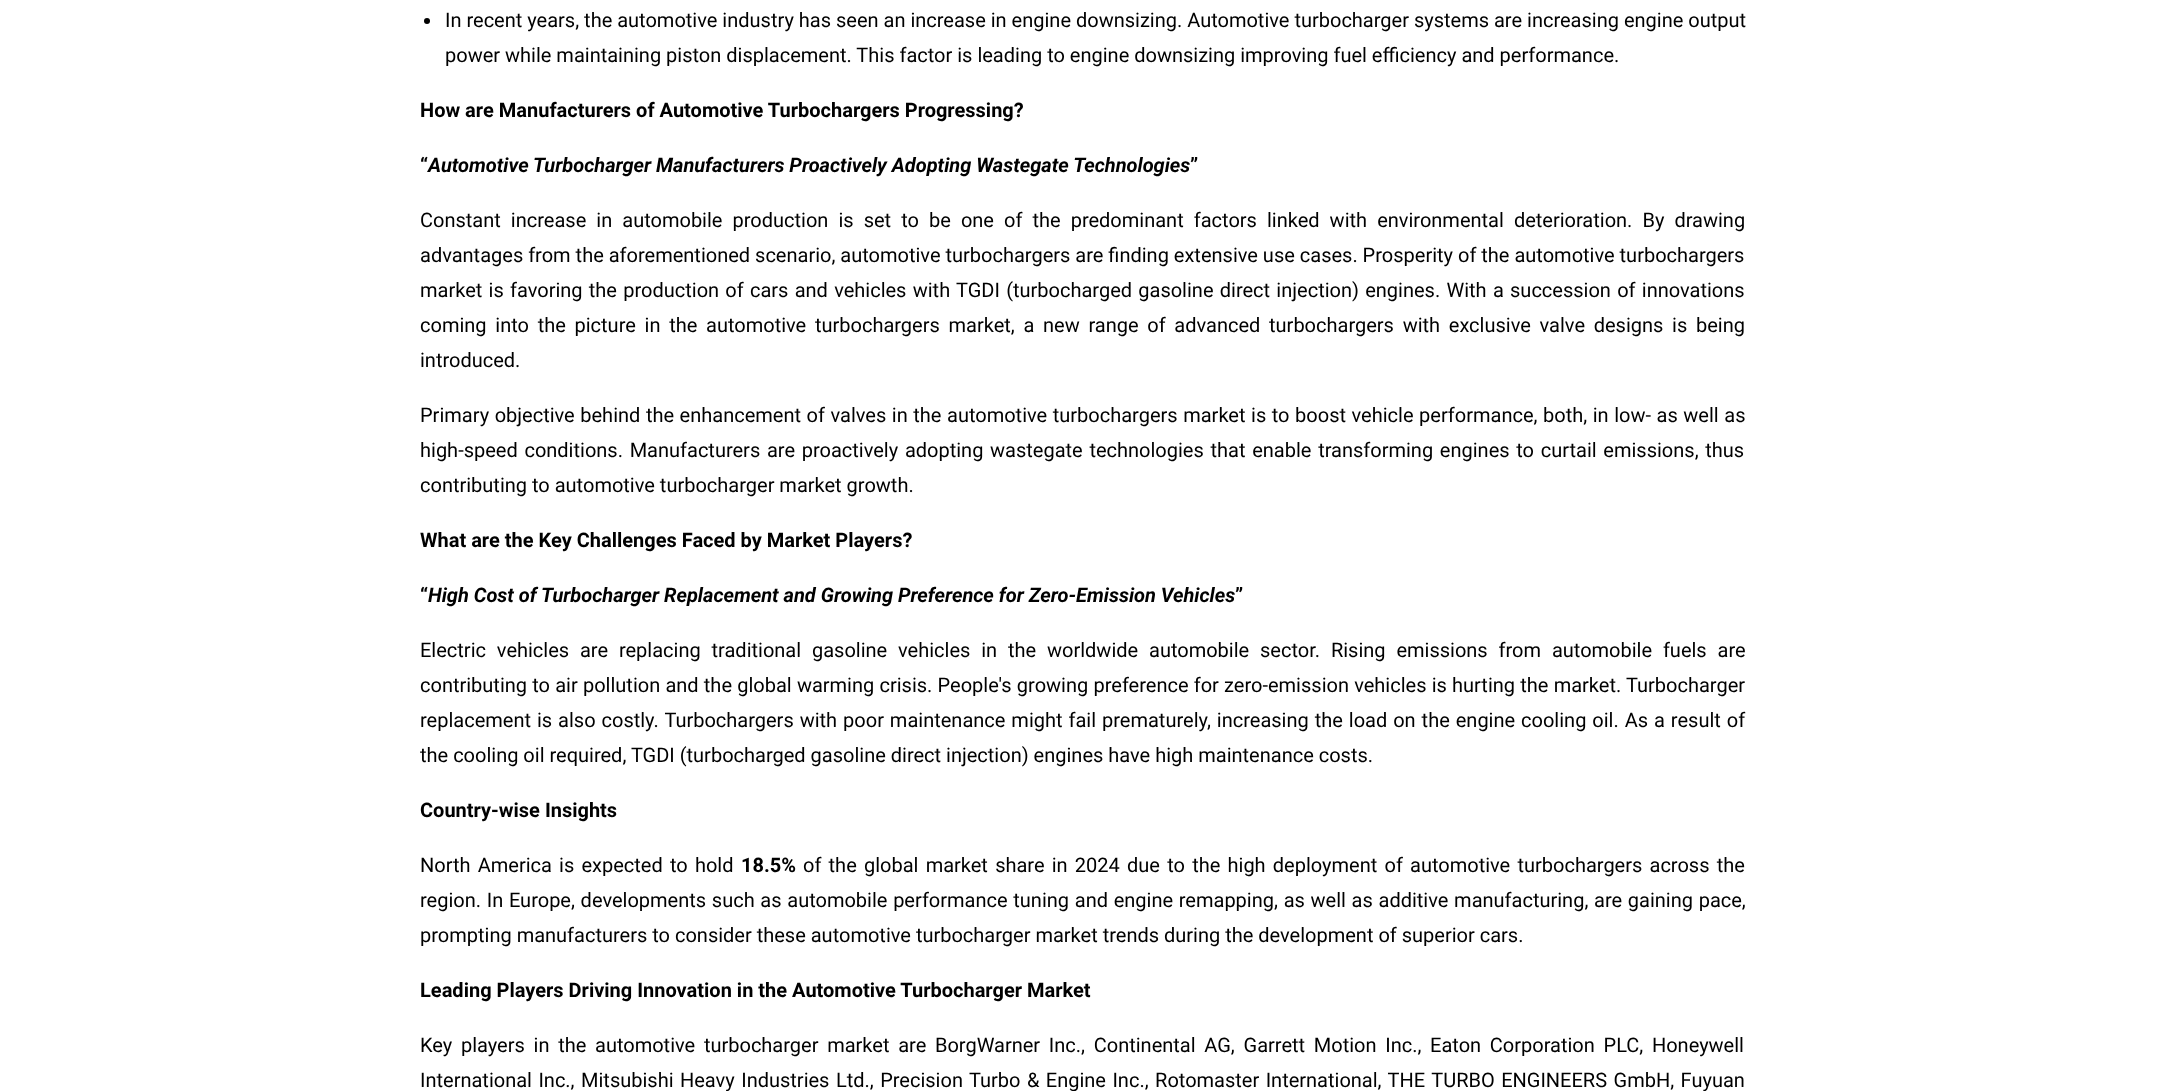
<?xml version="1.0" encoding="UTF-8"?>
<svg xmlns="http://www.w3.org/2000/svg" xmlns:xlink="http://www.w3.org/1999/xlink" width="2165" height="1091">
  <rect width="100%" height="100%" fill="#ffffff" />
  <circle cx="427" cy="21" r="3" fill="#000000" />
  <text x="445" y="27" style="font-family: Roboto; font-size: 20px; fill: #000000">In recent years, the automotive industry has seen an increase in engine downsizing. Automotive turbocharger systems are increasing engine output</text>
  <text x="445" y="62" style="font-family: Roboto; font-size: 20px; fill: #000000">power while maintaining piston displacement. This factor is leading to engine downsizing improving fuel efficiency and performance.</text>
  <text x="420" y="117" style="font-family: Roboto; font-size: 20px; font-weight: bold; fill: #000000">How are Manufacturers of Automotive Turbochargers Progressing?</text>
  <text x="420" y="172" style="font-family: Roboto; font-size: 20px; font-weight: bold; fill: #000000">“</text>
  <text x="428" y="172" style="font-family: Roboto; font-size: 20px; font-weight: bold; font-style: italic; fill: #000000">Automotive Turbocharger Manufacturers Proactively Adopting Wastegate Technologies</text>
  <text x="1190" y="172" style="font-family: Roboto; font-size: 20px; font-weight: bold; fill: #000000">”</text>
  <text x="420" y="227" word-spacing="5.1" style="font-family: Roboto; font-size: 20px; fill: #000000">Constant increase in automobile production is set to be one of the predominant factors linked with environmental deterioration. By drawing</text>
  <text x="420" y="262" style="font-family: Roboto; font-size: 20px; fill: #000000">advantages from the aforementioned scenario, automotive turbochargers are finding extensive use cases. Prosperity of the automotive turbochargers</text>
  <text x="420" y="297" word-spacing="1.3" style="font-family: Roboto; font-size: 20px; fill: #000000">market is favoring the production of cars and vehicles with TGDI (turbocharged gasoline direct injection) engines. With a succession of innovations</text>
  <text x="420" y="332" word-spacing="3.75" style="font-family: Roboto; font-size: 20px; fill: #000000">coming into the picture in the automotive turbochargers market, a new range of advanced turbochargers with exclusive valve designs is being</text>
  <text x="420" y="367" style="font-family: Roboto; font-size: 20px; fill: #000000">introduced.</text>
  <text x="420" y="422" word-spacing="0.6" style="font-family: Roboto; font-size: 20px; fill: #000000">Primary objective behind the enhancement of valves in the automotive turbochargers market is to boost vehicle performance, both, in low- as well as</text>
  <text x="420" y="457" word-spacing="1.75" style="font-family: Roboto; font-size: 20px; fill: #000000">high-speed conditions. Manufacturers are proactively adopting wastegate technologies that enable transforming engines to curtail emissions, thus</text>
  <text x="420" y="492" style="font-family: Roboto; font-size: 20px; fill: #000000">contributing to automotive turbocharger market growth.</text>
  <text x="420" y="547" style="font-family: Roboto; font-size: 20px; font-weight: bold; fill: #000000">What are the Key Challenges Faced by Market Players?</text>
  <text x="420" y="602" style="font-family: Roboto; font-size: 20px; font-weight: bold; fill: #000000">“</text>
  <text x="428" y="602" style="font-family: Roboto; font-size: 20px; font-weight: bold; font-style: italic; fill: #000000">High Cost of Turbocharger Replacement and Growing Preference for Zero-Emission Vehicles</text>
  <text x="1235" y="602" style="font-family: Roboto; font-size: 20px; font-weight: bold; fill: #000000">”</text>
  <text x="420" y="657" word-spacing="5.9" style="font-family: Roboto; font-size: 20px; fill: #000000">Electric vehicles are replacing traditional gasoline vehicles in the worldwide automobile sector. Rising emissions from automobile fuels are</text>
  <text x="420" y="692" word-spacing="0.25" style="font-family: Roboto; font-size: 20px; fill: #000000">contributing to air pollution and the global warming crisis. People's growing preference for zero-emission vehicles is hurting the market. Turbocharger</text>
  <text x="420" y="727" word-spacing="1" style="font-family: Roboto; font-size: 20px; fill: #000000">replacement is also costly. Turbochargers with poor maintenance might fail prematurely, increasing the load on the engine cooling oil. As a result of</text>
  <text x="420" y="762" style="font-family: Roboto; font-size: 20px; fill: #000000">the cooling oil required, TGDI (turbocharged gasoline direct injection) engines have high maintenance costs.</text>
  <text x="420" y="817" style="font-family: Roboto; font-size: 20px; font-weight: bold; fill: #000000">Country-wise Insights</text>
  <text x="420" y="872" word-spacing="2.25" style="font-family: Roboto; font-size: 20px; fill: #000000">North America is expected to hold</text>
  <text x="741" y="872" style="font-family: Roboto; font-size: 20px; font-weight: bold; fill: #000000">18.5%</text>
  <text x="803" y="872" word-spacing="2.25" style="font-family: Roboto; font-size: 20px; fill: #000000">of the global market share in 2024 due to the high deployment of automotive turbochargers across the</text>
  <text x="420" y="907" word-spacing="0.75" style="font-family: Roboto; font-size: 20px; fill: #000000">region. In Europe, developments such as automobile performance tuning and engine remapping, as well as additive manufacturing, are gaining pace,</text>
  <text x="420" y="942" style="font-family: Roboto; font-size: 20px; fill: #000000">prompting manufacturers to consider these automotive turbocharger market trends during the development of superior cars.</text>
  <text x="420" y="997" style="font-family: Roboto; font-size: 20px; font-weight: bold; fill: #000000">Leading Players Driving Innovation in the Automotive Turbocharger Market</text>
  <text x="420" y="1052" word-spacing="3.75" style="font-family: Roboto; font-size: 20px; fill: #000000">Key players in the automotive turbocharger market are BorgWarner Inc., Continental AG, Garrett Motion Inc., Eaton Corporation PLC, Honeywell</text>
  <text x="420" y="1087" word-spacing="1.5" style="font-family: Roboto; font-size: 20px; fill: #000000">International Inc., Mitsubishi Heavy Industries Ltd., Precision Turbo &amp; Engine Inc., Rotomaster International, THE TURBO ENGINEERS GmbH, Fuyuan</text>
</svg>
